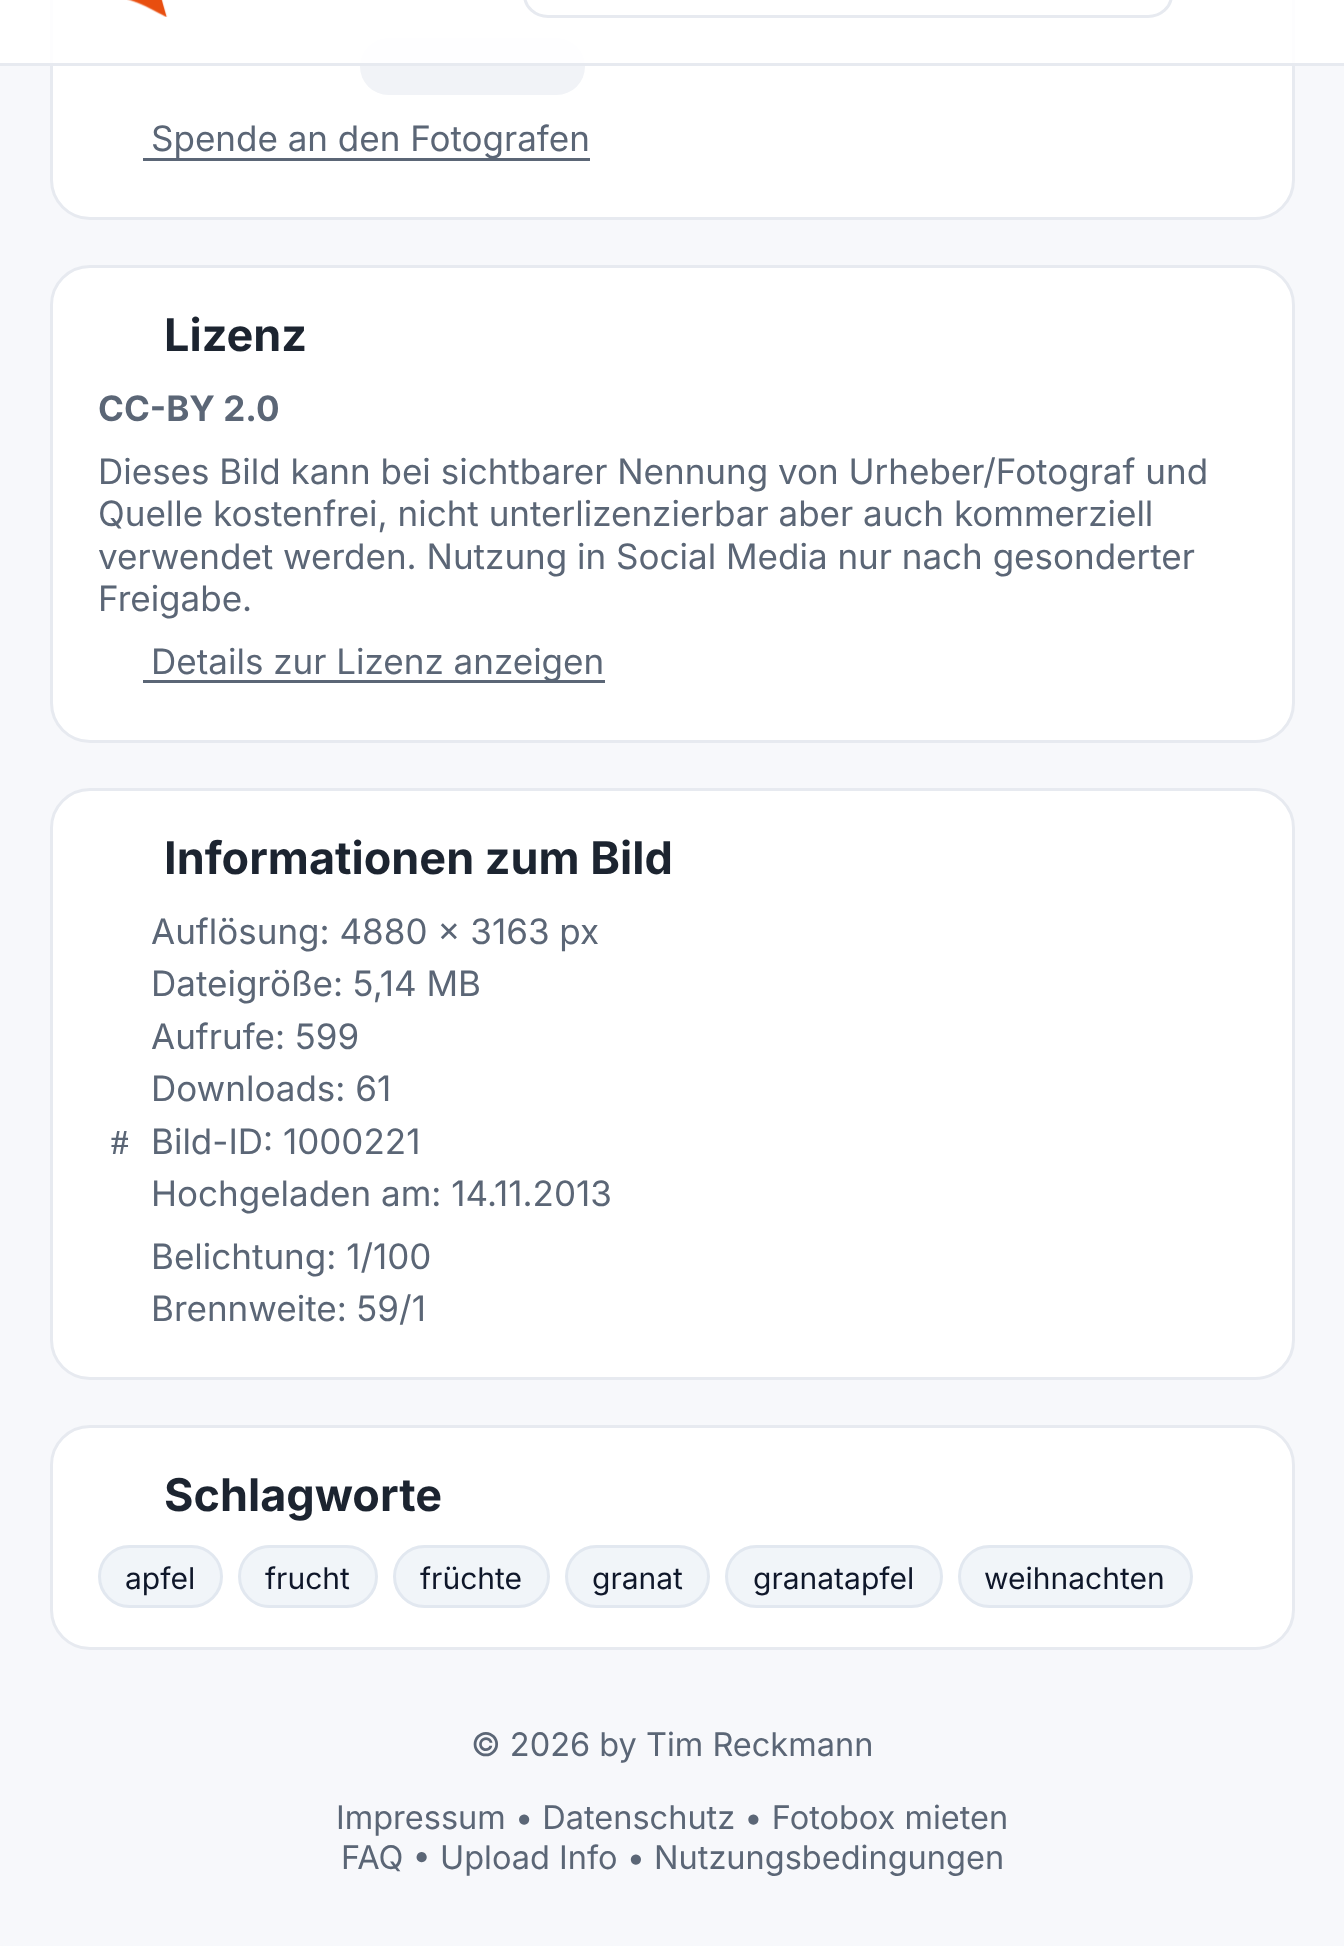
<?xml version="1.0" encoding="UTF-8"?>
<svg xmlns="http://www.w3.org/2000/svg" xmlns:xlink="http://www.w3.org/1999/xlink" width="1344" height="1946">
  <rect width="100%" height="100%" fill="#f7f8fb" />
  <rect x="51.5" y="-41.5" width="1242" height="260" rx="38.5" fill="#ffffff" stroke="#e7eaf0" stroke-width="3" />
  <rect x="360" y="38" width="225" height="57" rx="28.5" fill="#f1f3f7" />
  <rect width="1344" height="63" fill="#ffffff" fill-opacity="0.9" />
  <rect y="63" width="1344" height="3" fill="#e7eaf0" />
  <image x="127" y="0" width="41" height="17" xlink:href="image1.png" />
  <rect x="524.5" y="-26.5" width="647" height="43" rx="23.5" fill="none" stroke="#e7eaf0" stroke-width="3" />
  <rect x="143" y="158" width="447" height="3" fill="#5b6676" />
  <rect x="51.5" y="266.5" width="1242" height="475" rx="38.5" fill="#ffffff" stroke="#e7eaf0" stroke-width="3" />
  <rect x="143" y="680" width="462" height="3" fill="#5b6676" />
  <rect x="51.5" y="789.5" width="1242" height="589" rx="38.5" fill="#ffffff" stroke="#e7eaf0" stroke-width="3" />
  <rect x="51.5" y="1426.5" width="1242" height="222" rx="38.5" fill="#ffffff" stroke="#e7eaf0" stroke-width="3" />
  <rect x="99.5" y="1546.5" width="122" height="60" rx="30" fill="#f1f5f9" stroke="#e2e8f0" stroke-width="3" />
  <rect x="239.5" y="1546.5" width="137" height="60" rx="30" fill="#f1f5f9" stroke="#e2e8f0" stroke-width="3" />
  <rect x="394.5" y="1546.5" width="154" height="60" rx="30" fill="#f1f5f9" stroke="#e2e8f0" stroke-width="3" />
  <rect x="566.5" y="1546.5" width="142" height="60" rx="30" fill="#f1f5f9" stroke="#e2e8f0" stroke-width="3" />
  <rect x="726.5" y="1546.5" width="215" height="60" rx="30" fill="#f1f5f9" stroke="#e2e8f0" stroke-width="3" />
  <rect x="959.5" y="1546.5" width="232" height="60" rx="30" fill="#f1f5f9" stroke="#e2e8f0" stroke-width="3" />
  <text x="151" y="151" style="font-family: Inter; font-size: 35px; fill: #5b6676">Spende an den Fotografen</text>
  <text x="164" y="351" style="font-family: Inter; font-size: 45px; font-weight: bold; fill: #1c2430">Lizenz</text>
  <text x="98" y="421" style="font-family: Inter; font-size: 35px; font-weight: bold; fill: #5b6676">CC-BY 2.0</text>
  <text x="98" y="484" style="font-family: Inter; font-size: 35px; fill: #5b6676">Dieses Bild kann bei sichtbarer Nennung von Urheber/Fotograf und</text>
  <text x="98" y="526" style="font-family: Inter; font-size: 35px; fill: #5b6676">Quelle kostenfrei, nicht unterlizenzierbar aber auch kommerziell</text>
  <text x="98" y="569" style="font-family: Inter; font-size: 35px; fill: #5b6676">verwendet werden. Nutzung in Social Media nur nach gesonderter</text>
  <text x="98" y="611" style="font-family: Inter; font-size: 35px; fill: #5b6676">Freigabe.</text>
  <text x="151" y="674" style="font-family: Inter; font-size: 35px; fill: #5b6676">Details zur Lizenz anzeigen</text>
  <text x="164" y="874" style="font-family: Inter; font-size: 45px; font-weight: bold; fill: #1c2430">Informationen zum Bild</text>
  <text x="151" y="944" style="font-family: Inter; font-size: 35px; fill: #5b6676">Auflösung: 4880 × 3163 px</text>
  <text x="151" y="996" style="font-family: Inter; font-size: 35px; fill: #5b6676">Dateigröße: 5,14 MB</text>
  <text x="151" y="1049" style="font-family: Inter; font-size: 35px; fill: #5b6676">Aufrufe: 599</text>
  <text x="151" y="1101" style="font-family: Inter; font-size: 35px; fill: #5b6676">Downloads: 61</text>
  <text x="111" y="1154" style="font-family: Liberation Serif; font-size: 35px; font-weight: bold; fill: #5b6676">#</text>
  <text x="151" y="1154" style="font-family: Inter; font-size: 35px; fill: #5b6676">Bild-ID: 1000221</text>
  <text x="151" y="1206" style="font-family: Inter; font-size: 35px; fill: #5b6676">Hochgeladen am: 14.11.2013</text>
  <text x="151" y="1269" style="font-family: Inter; font-size: 35px; fill: #5b6676">Belichtung: 1/100</text>
  <text x="151" y="1321" style="font-family: Inter; font-size: 35px; fill: #5b6676">Brennweite: 59/1</text>
  <text x="164" y="1511" style="font-family: Inter; font-size: 45px; font-weight: bold; fill: #1c2430">Schlagworte</text>
  <text x="125" y="1589" style="font-family: Inter; font-size: 30px; fill: #0f172a">apfel</text>
  <text x="265" y="1589" style="font-family: Inter; font-size: 30px; fill: #0f172a">frucht</text>
  <text x="420" y="1589" style="font-family: Inter; font-size: 30px; fill: #0f172a">früchte</text>
  <text x="592" y="1589" style="font-family: Inter; font-size: 30px; fill: #0f172a">granat</text>
  <text x="753" y="1589" style="font-family: Inter; font-size: 30px; fill: #0f172a">granatapfel</text>
  <text x="984" y="1589" style="font-family: Inter; font-size: 30px; fill: #0f172a">weihnachten</text>
  <text x="471" y="1756" style="font-family: Inter; font-size: 32.5px; fill: #5b6676">© 2026 by Tim Reckmann</text>
  <text x="336" y="1829" style="font-family: Inter; font-size: 32.5px; fill: #5b6676">Impressum • Datenschutz • Fotobox mieten</text>
  <text x="341" y="1869" style="font-family: Inter; font-size: 32.5px; fill: #5b6676">FAQ • Upload Info • Nutzungsbedingungen</text>
</svg>
